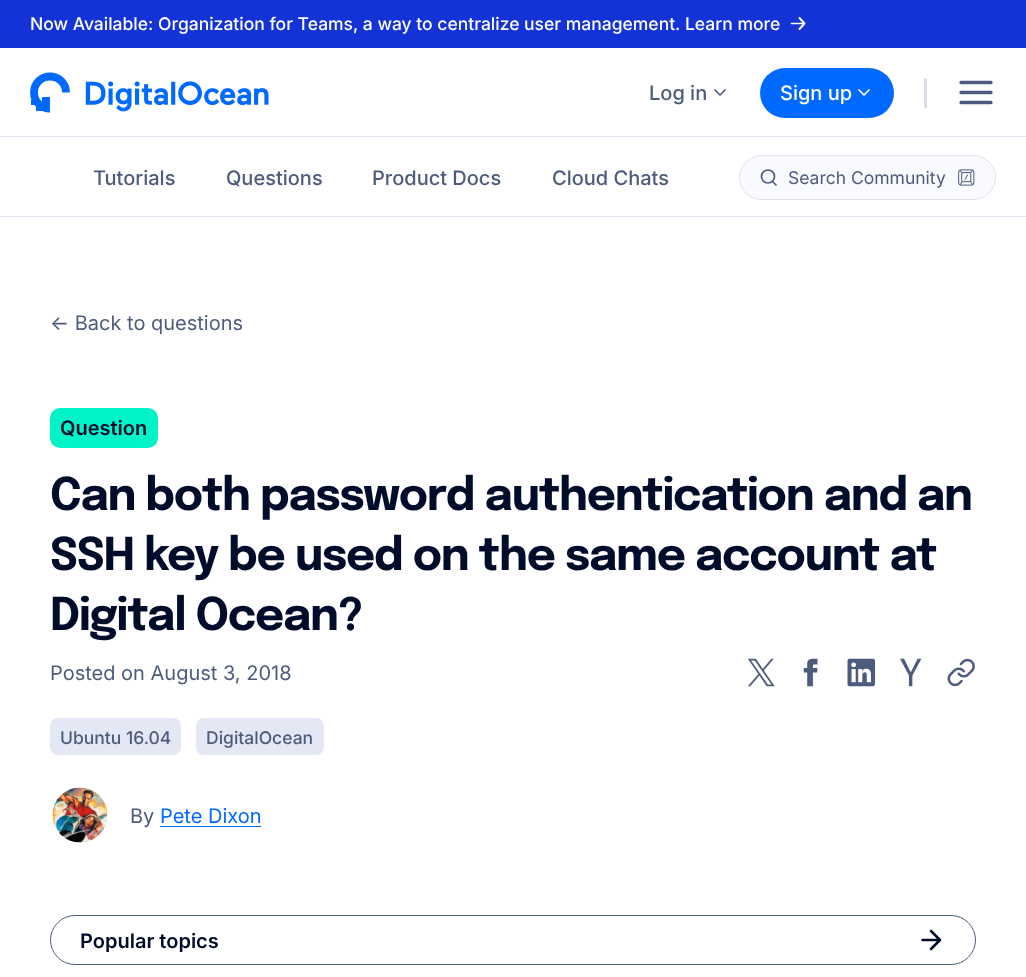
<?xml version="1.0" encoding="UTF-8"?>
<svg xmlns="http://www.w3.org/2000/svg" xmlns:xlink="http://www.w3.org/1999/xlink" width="1026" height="977">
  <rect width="100%" height="100%" fill="#ffffff" />
  <rect width="1026" height="48" fill="#1433d6" />
  <path d="M 799.5 18 l 5 5.5 l -5 5.5" fill="none" stroke="#ffffff" stroke-width="1.9" stroke-linecap="round" stroke-linejoin="round" />
  <path d="M 791.5 23.5 h 11.5" fill="none" stroke="#ffffff" stroke-width="1.5" stroke-linecap="round" stroke-linejoin="round" />
  <path d="M 50 76.5 c 9 0 16 7 16 16 m -16 16 c -9 0 -16 -7 -16 -16 c 0 -9 7 -16 16 -16" fill="none" stroke="#0069ff" stroke-width="7.8" />
  <rect x="31" y="100" width="5" height="5" fill="#0069ff" />
  <rect x="36" y="106" width="6" height="5" fill="#0069ff" />
  <rect x="42" y="97" width="8" height="8" fill="#0069ff" />
  <image x="85" y="81" width="184" height="31" xlink:href="image1.png" />
  <path d="M 715 90 l 5 5 l 5 -5" fill="none" stroke="#4d5b7c" stroke-width="1.7" stroke-linecap="round" stroke-linejoin="round" />
  <rect x="760" y="68" width="134" height="50" rx="25" fill="#0069ff" />
  <path d="M 859 90 l 5 5 l 5 -5" fill="none" stroke="#ffffff" stroke-width="1.7" stroke-linecap="round" stroke-linejoin="round" />
  <rect x="924" y="78" width="3" height="30" rx="1.5" fill="#d6dcea" />
  <path d="M 961 92.5 h 30 m -30 -10 h 30 m -30 20 h 30" fill="none" stroke="#4d5b7c" stroke-width="3.3" stroke-linecap="round" stroke-linejoin="round" />
  <rect y="136" width="1026" height="1" fill="#e3e8f4" />
  <rect x="739" y="155" width="257" height="45" rx="22.5" fill="#f9fafe" />
  <rect x="739.5" y="155.5" width="256" height="44" rx="22" fill="none" stroke="#11192e" stroke-opacity="0.1" />
  <circle cx="768" cy="176.5" r="6.5" fill="none" stroke="#4d5b7c" stroke-width="1.7" />
  <path d="M 776 185 l -3.5 -3.5" fill="none" stroke="#4d5b7c" stroke-width="1.7" stroke-linecap="round" stroke-linejoin="round" />
  <image x="958" y="169" width="17" height="17" xlink:href="image2.png" />
  <rect y="216" width="1026" height="1" fill="#e3e8f4" />
  <rect x="50" y="408" width="108" height="40" rx="10" fill="#00f4c8" />
  <image x="747" y="658" width="28" height="29" xlink:href="image3.png" />
  <image x="803" y="658" width="15" height="29" xlink:href="image4.png" />
  <image x="847" y="658" width="28" height="29" xlink:href="image5.png" />
  <image x="900" y="658" width="22" height="29" xlink:href="image6.png" />
  <image x="947" y="658" width="28" height="29" xlink:href="image7.png" />
  <rect x="50" y="718" width="131" height="37" rx="8" fill="#e3e8f4" />
  <rect x="196" y="718" width="128" height="37" rx="8" fill="#e3e8f4" />
  <image x="52" y="787" width="56" height="56" xlink:href="image8.png" />
  <rect x="160" y="826" width="101" height="1" fill="#0069ff" />
  <rect x="50.5" y="915.5" width="925" height="49" rx="24.5" fill="none" stroke="#4d5b7c" />
  <path d="M 922.5 940 h 17.5 m -9 -9 l 9 9 l -9 9" fill="none" stroke="#000c2a" stroke-width="2.5" stroke-linecap="round" stroke-linejoin="round" />
  <text x="30" y="30" style="font-family: Inter; font-size: 17.5px; font-weight: 500; fill: #ffffff">Now Available: Organization for Teams, a way to centralize user management. Learn more</text>
  <text x="649" y="100" style="font-family: Inter; font-size: 20px; font-weight: 500; fill: #4d5b7c">Log in</text>
  <text x="780" y="100" style="font-family: Inter; font-size: 20px; font-weight: 500; fill: #ffffff">Sign up</text>
  <text x="93" y="185" style="font-family: Inter; font-size: 20px; font-weight: 500; fill: #4d5b7c">Tutorials</text>
  <text x="226" y="185" style="font-family: Inter; font-size: 20px; font-weight: 500; fill: #4d5b7c">Questions</text>
  <text x="372" y="185" style="font-family: Inter; font-size: 20px; font-weight: 500; fill: #4d5b7c">Product Docs</text>
  <text x="552" y="185" style="font-family: Inter; font-size: 20px; font-weight: 500; fill: #4d5b7c">Cloud Chats</text>
  <text x="788" y="184" style="font-family: Inter; font-size: 17.5px; fill: #4d5b7c">Search Community</text>
  <text x="50" y="330" style="font-family: Inter; font-size: 20px; fill: #4d5b7c">&lt;- Back to questions</text>
  <text x="60" y="435" style="font-family: Inter; font-size: 20px; font-weight: 600; fill: #000c2a">Question</text>
  <text x="50" y="510" style="font-family: Epilogue; font-size: 45px; font-weight: bold; letter-spacing: -1.25px; fill: #000c2a">Can both password authentication and an</text>
  <text x="50" y="570" style="font-family: Epilogue; font-size: 45px; font-weight: bold; letter-spacing: -1.25px; fill: #000c2a">SSH key be used on the same account at</text>
  <text x="50" y="630" style="font-family: Epilogue; font-size: 45px; font-weight: bold; letter-spacing: -1.25px; fill: #000c2a">Digital Ocean?</text>
  <text x="50" y="680" style="font-family: Inter; font-size: 20px; fill: #4d5b7c">Posted on August 3, 2018</text>
  <text x="60" y="744" style="font-family: Inter; font-size: 17.5px; font-weight: 500; fill: #4d5b7c">Ubuntu 16.04</text>
  <text x="206" y="744" style="font-family: Inter; font-size: 17.5px; font-weight: 500; fill: #4d5b7c">DigitalOcean</text>
  <text x="130" y="823" style="font-family: Inter; font-size: 20px; fill: #4d5b7c">By</text>
  <text x="160" y="823" style="font-family: Inter; font-size: 20px; fill: #0069ff">Pete Dixon</text>
  <text x="80" y="948" style="font-family: Inter; font-size: 20px; font-weight: 600; fill: #000c2a">Popular topics</text>
</svg>
